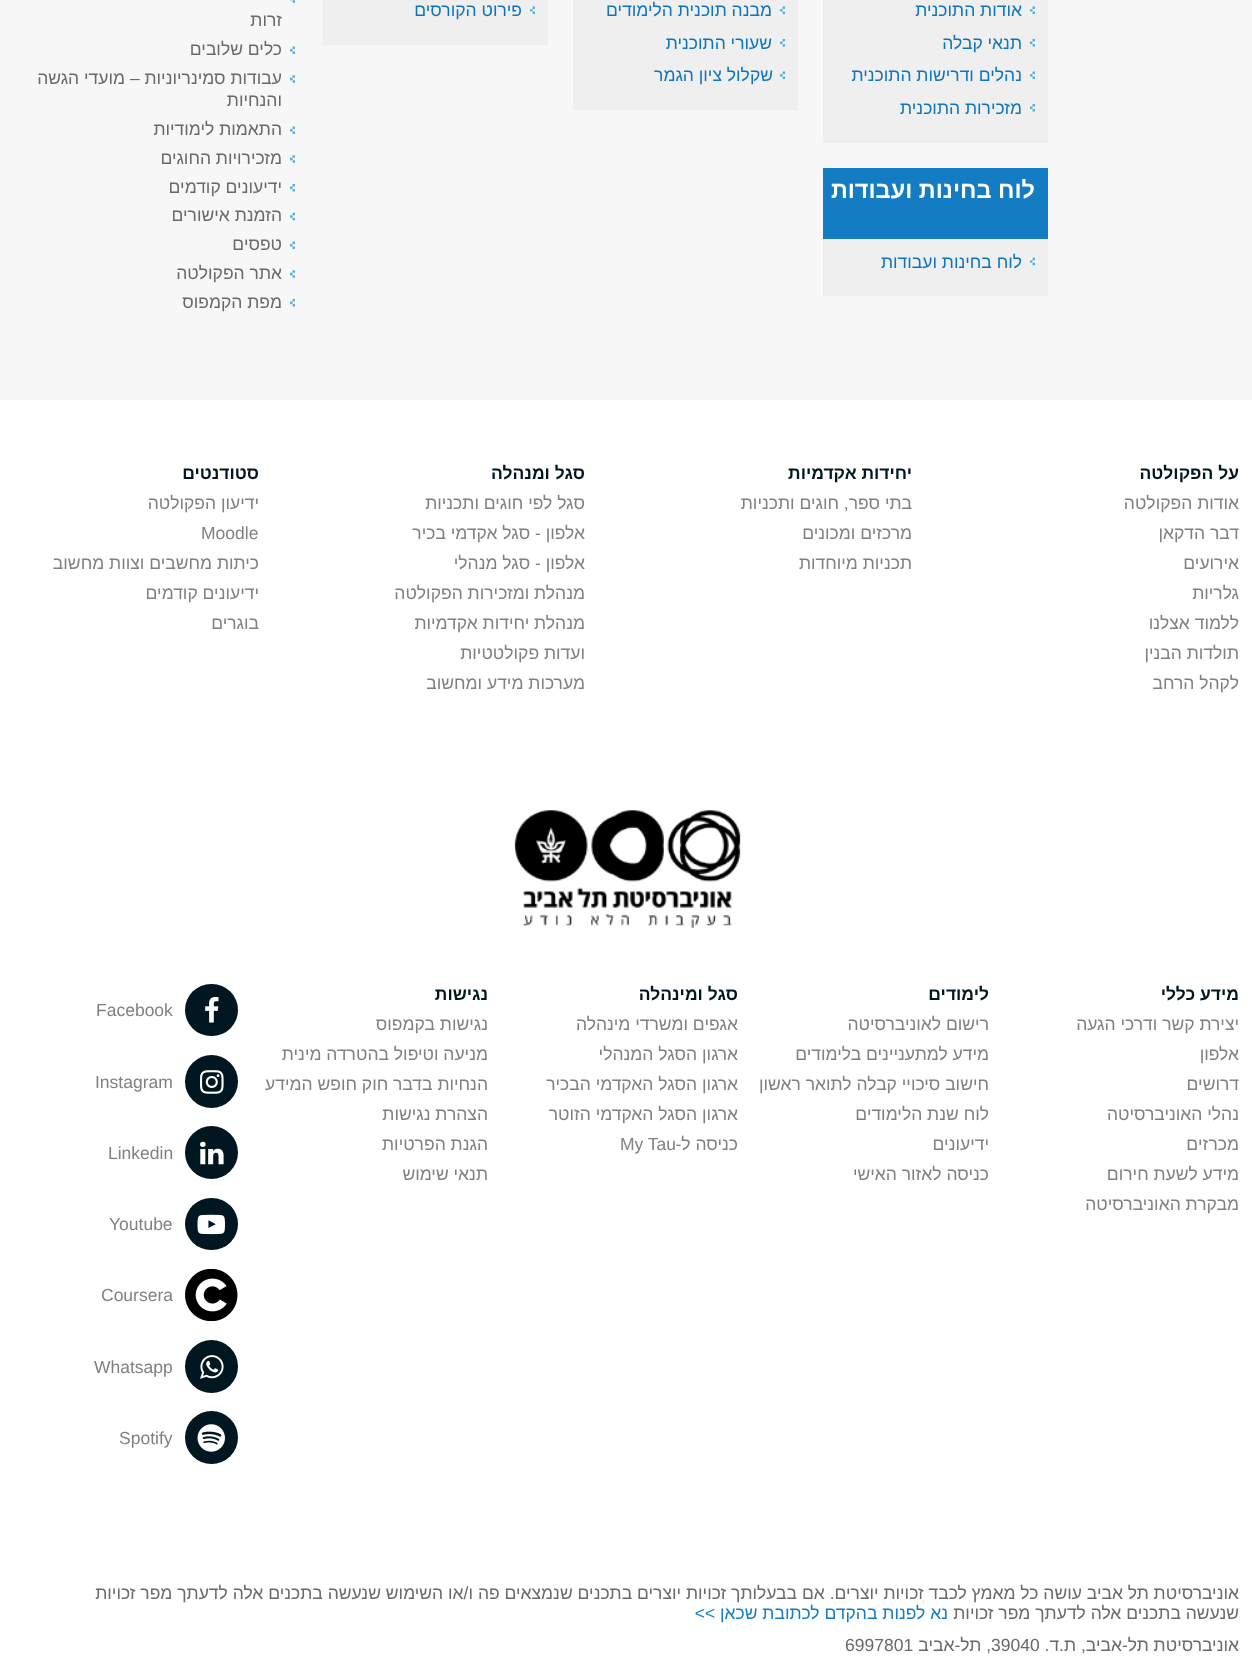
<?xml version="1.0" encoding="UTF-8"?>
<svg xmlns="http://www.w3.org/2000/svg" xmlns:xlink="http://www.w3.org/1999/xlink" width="1252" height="1665">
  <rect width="100%" height="100%" fill="#f7f7f7" />
  <rect x="823" width="225" height="143" fill="#efefef" />
  <image x="1030" y="6" width="5" height="8" xlink:href="image1.png" />
  <image x="1030" y="39" width="5" height="8" xlink:href="image2.png" />
  <image x="1030" y="71" width="5" height="8" xlink:href="image3.png" />
  <image x="1030" y="104" width="5" height="8" xlink:href="image2.png" />
  <rect x="573" width="225" height="110" fill="#efefef" />
  <image x="780" y="6" width="5" height="8" xlink:href="image4.png" />
  <image x="780" y="39" width="5" height="8" xlink:href="image5.png" />
  <image x="780" y="71" width="5" height="8" xlink:href="image6.png" />
  <rect x="323" width="225" height="45" fill="#efefef" />
  <image x="530" y="6" width="5" height="8" xlink:href="image4.png" />
  <rect x="823" y="239" width="225" height="57" fill="#efefef" />
  <rect x="823" y="168" width="225" height="71" fill="#147cc2" />
  <image x="1030" y="257" width="5" height="9" xlink:href="image7.png" />
  <image x="290" y="0" width="5" height="3" xlink:href="image8.png" />
  <image x="290" y="46" width="5" height="8" xlink:href="image9.png" />
  <image x="290" y="75" width="5" height="8" xlink:href="image10.png" />
  <image x="290" y="126" width="5" height="8" xlink:href="image9.png" />
  <image x="290" y="155" width="5" height="8" xlink:href="image10.png" />
  <image x="290" y="184" width="5" height="8" xlink:href="image11.png" />
  <image x="290" y="212" width="5" height="9" xlink:href="image12.png" />
  <image x="290" y="241" width="5" height="8" xlink:href="image9.png" />
  <image x="290" y="270" width="5" height="8" xlink:href="image10.png" />
  <image x="290" y="299" width="5" height="8" xlink:href="image11.png" />
  <rect y="400" width="1252" height="1265" fill="#ffffff" />
  <image x="514" y="810" width="227" height="118" xlink:href="image13.png" />
  <rect x="185" y="984" width="53" height="52" rx="26" fill="#001721" />
  <image x="205" y="997" width="14" height="26" xlink:href="image14.png" />
  <circle cx="211.5" cy="1081.5" r="26.5" fill="#001721" />
  <image x="200" y="1070" width="24" height="24" xlink:href="image15.png" />
  <circle cx="211.5" cy="1152.5" r="26.5" fill="#001721" />
  <image x="200" y="1141" width="24" height="24" xlink:href="image16.png" />
  <rect x="185" y="1198" width="53" height="52" rx="26" fill="#001721" />
  <image x="197" y="1214" width="28" height="21" xlink:href="image17.png" />
  <image x="185" y="1269" width="53" height="52" xlink:href="image18.png" />
  <circle cx="211.5" cy="1366.5" r="26.5" fill="#001721" />
  <image x="200" y="1355" width="24" height="24" xlink:href="image19.png" />
  <circle cx="211.5" cy="1437.5" r="26.5" fill="#001721" />
  <image x="197" y="1424" width="28" height="28" xlink:href="image20.png" />
  <text x="1022" y="16" style="font-family: Liberation Sans; font-size: 17.5px; direction: rtl; fill: #0e74bc">אודות התוכנית</text>
  <text x="1022" y="49" style="font-family: Liberation Sans; font-size: 17.5px; direction: rtl; fill: #0e74bc">תנאי קבלה</text>
  <text x="1022" y="81" style="font-family: Liberation Sans; font-size: 17.5px; direction: rtl; fill: #0e74bc">נהלים ודרישות התוכנית</text>
  <text x="1022" y="114" style="font-family: Liberation Sans; font-size: 17.5px; direction: rtl; fill: #0e74bc">מזכירות התוכנית</text>
  <text x="772" y="16" style="font-family: Liberation Sans; font-size: 17.5px; direction: rtl; fill: #0e74bc">מבנה תוכנית הלימודים</text>
  <text x="772" y="49" style="font-family: Liberation Sans; font-size: 17.5px; direction: rtl; fill: #0e74bc">שעורי התוכנית</text>
  <text x="773" y="81" style="font-family: Liberation Sans; font-size: 17.5px; direction: rtl; fill: #0e74bc">שקלול ציון הגמר</text>
  <text x="522" y="16" style="font-family: Liberation Sans; font-size: 17.5px; direction: rtl; fill: #0e74bc">פירוט הקורסים</text>
  <text x="1035" y="198" style="font-family: Liberation Sans; font-size: 23.5px; font-weight: bold; direction: rtl; fill: #ffffff">לוח בחינות ועבודות</text>
  <text x="1022" y="268" style="font-family: Liberation Sans; font-size: 17.5px; direction: rtl; fill: #0e74bc">לוח בחינות ועבודות</text>
  <text x="282" y="26" style="font-family: Liberation Sans; font-size: 17.5px; direction: rtl; fill: #696969">זרות</text>
  <text x="282" y="55" style="font-family: Liberation Sans; font-size: 17.5px; direction: rtl; fill: #696969">כלים שלובים</text>
  <text x="282" y="84" style="font-family: Liberation Sans; font-size: 17.5px; direction: rtl; fill: #696969">עבודות סמינריוניות – מועדי הגשה</text>
  <text x="282" y="106" style="font-family: Liberation Sans; font-size: 17.5px; direction: rtl; fill: #696969">והנחיות</text>
  <text x="282" y="135" style="font-family: Liberation Sans; font-size: 17.5px; direction: rtl; fill: #696969">התאמות לימודיות</text>
  <text x="282" y="164" style="font-family: Liberation Sans; font-size: 17.5px; direction: rtl; fill: #696969">מזכירויות החוגים</text>
  <text x="282" y="193" style="font-family: Liberation Sans; font-size: 17.5px; direction: rtl; fill: #696969">ידיעונים קודמים</text>
  <text x="282" y="221" style="font-family: Liberation Sans; font-size: 17.5px; direction: rtl; fill: #696969">הזמנת אישורים</text>
  <text x="282" y="250" style="font-family: Liberation Sans; font-size: 17.5px; direction: rtl; fill: #696969">טפסים</text>
  <text x="282" y="279" style="font-family: Liberation Sans; font-size: 17.5px; direction: rtl; fill: #696969">אתר הפקולטה</text>
  <text x="282" y="308" style="font-family: Liberation Sans; font-size: 17.5px; direction: rtl; fill: #696969">מפת הקמפוס</text>
  <text x="1239" y="479" style="font-family: Liberation Sans; font-size: 17.5px; font-weight: bold; direction: rtl; fill: #001721">על הפקולטה</text>
  <text x="1239" y="509" style="font-family: Liberation Sans; font-size: 17.5px; direction: rtl; fill: #808080">אודות הפקולטה</text>
  <text x="1239" y="539" style="font-family: Liberation Sans; font-size: 17.5px; direction: rtl; fill: #808080">דבר הדקאן</text>
  <text x="1239" y="569" style="font-family: Liberation Sans; font-size: 17.5px; direction: rtl; fill: #808080">אירועים</text>
  <text x="1239" y="599" style="font-family: Liberation Sans; font-size: 17.5px; direction: rtl; fill: #808080">גלריות</text>
  <text x="1239" y="629" style="font-family: Liberation Sans; font-size: 17.5px; direction: rtl; fill: #808080">ללמוד אצלנו</text>
  <text x="1239" y="659" style="font-family: Liberation Sans; font-size: 17.5px; direction: rtl; fill: #808080">תולדות הבנין</text>
  <text x="1239" y="689" style="font-family: Liberation Sans; font-size: 17.5px; direction: rtl; fill: #808080">לקהל הרחב</text>
  <text x="912" y="479" style="font-family: Liberation Sans; font-size: 17.5px; font-weight: bold; direction: rtl; fill: #001721">יחידות אקדמיות</text>
  <text x="912" y="509" style="font-family: Liberation Sans; font-size: 17.5px; direction: rtl; fill: #808080">בתי ספר, חוגים ותכניות</text>
  <text x="912" y="539" style="font-family: Liberation Sans; font-size: 17.5px; direction: rtl; fill: #808080">מרכזים ומכונים</text>
  <text x="912" y="569" style="font-family: Liberation Sans; font-size: 17.5px; direction: rtl; fill: #808080">תכניות מיוחדות</text>
  <text x="585" y="479" style="font-family: Liberation Sans; font-size: 17.5px; font-weight: bold; direction: rtl; fill: #001721">סגל ומנהלה</text>
  <text x="585" y="509" style="font-family: Liberation Sans; font-size: 17.5px; direction: rtl; fill: #808080">סגל לפי חוגים ותכניות</text>
  <text x="585" y="539" style="font-family: Liberation Sans; font-size: 17.5px; direction: rtl; fill: #808080">אלפון - סגל אקדמי בכיר</text>
  <text x="585" y="569" style="font-family: Liberation Sans; font-size: 17.5px; direction: rtl; fill: #808080">אלפון - סגל מנהלי</text>
  <text x="585" y="599" style="font-family: Liberation Sans; font-size: 17.5px; direction: rtl; fill: #808080">מנהלת ומזכירות הפקולטה</text>
  <text x="585" y="629" style="font-family: Liberation Sans; font-size: 17.5px; direction: rtl; fill: #808080">מנהלת יחידות אקדמיות</text>
  <text x="585" y="659" style="font-family: Liberation Sans; font-size: 17.5px; direction: rtl; fill: #808080">ועדות פקולטטיות</text>
  <text x="585" y="689" style="font-family: Liberation Sans; font-size: 17.5px; direction: rtl; fill: #808080">מערכות מידע ומחשוב</text>
  <text x="259" y="479" style="font-family: Liberation Sans; font-size: 17.5px; font-weight: bold; direction: rtl; fill: #001721">סטודנטים</text>
  <text x="259" y="509" style="font-family: Liberation Sans; font-size: 17.5px; direction: rtl; fill: #808080">ידיעון הפקולטה</text>
  <text x="201" y="539" style="font-family: Liberation Sans; font-size: 17.5px; fill: #808080">Moodle</text>
  <text x="259" y="569" style="font-family: Liberation Sans; font-size: 17.5px; direction: rtl; fill: #808080">כיתות מחשבים וצוות מחשוב</text>
  <text x="259" y="599" style="font-family: Liberation Sans; font-size: 17.5px; direction: rtl; fill: #808080">ידיעונים קודמים</text>
  <text x="259" y="629" style="font-family: Liberation Sans; font-size: 17.5px; direction: rtl; fill: #808080">בוגרים</text>
  <text x="1239" y="1000" style="font-family: Liberation Sans; font-size: 17.5px; font-weight: bold; direction: rtl; fill: #001721">מידע כללי</text>
  <text x="1239" y="1030" style="font-family: Liberation Sans; font-size: 17.5px; direction: rtl; fill: #808080">יצירת קשר ודרכי הגעה</text>
  <text x="1239" y="1060" style="font-family: Liberation Sans; font-size: 17.5px; direction: rtl; fill: #808080">אלפון</text>
  <text x="1239" y="1090" style="font-family: Liberation Sans; font-size: 17.5px; direction: rtl; fill: #808080">דרושים</text>
  <text x="1239" y="1120" style="font-family: Liberation Sans; font-size: 17.5px; direction: rtl; fill: #808080">נהלי האוניברסיטה</text>
  <text x="1239" y="1150" style="font-family: Liberation Sans; font-size: 17.5px; direction: rtl; fill: #808080">מכרזים</text>
  <text x="1239" y="1180" style="font-family: Liberation Sans; font-size: 17.5px; direction: rtl; fill: #808080">מידע לשעת חירום</text>
  <text x="1239" y="1210" style="font-family: Liberation Sans; font-size: 17.5px; direction: rtl; fill: #808080">מבקרת האוניברסיטה</text>
  <text x="989" y="1000" style="font-family: Liberation Sans; font-size: 17.5px; font-weight: bold; direction: rtl; fill: #001721">לימודים</text>
  <text x="989" y="1030" style="font-family: Liberation Sans; font-size: 17.5px; direction: rtl; fill: #808080">רישום לאוניברסיטה</text>
  <text x="989" y="1060" style="font-family: Liberation Sans; font-size: 17.5px; direction: rtl; fill: #808080">מידע למתעניינים בלימודים</text>
  <text x="989" y="1090" style="font-family: Liberation Sans; font-size: 17.5px; direction: rtl; fill: #808080">חישוב סיכויי קבלה לתואר ראשון</text>
  <text x="989" y="1120" style="font-family: Liberation Sans; font-size: 17.5px; direction: rtl; fill: #808080">לוח שנת הלימודים</text>
  <text x="989" y="1150" style="font-family: Liberation Sans; font-size: 17.5px; direction: rtl; fill: #808080">ידיעונים</text>
  <text x="989" y="1180" style="font-family: Liberation Sans; font-size: 17.5px; direction: rtl; fill: #808080">כניסה לאזור האישי</text>
  <text x="738" y="1000" style="font-family: Liberation Sans; font-size: 17.5px; font-weight: bold; direction: rtl; fill: #001721">סגל ומינהלה</text>
  <text x="738" y="1030" style="font-family: Liberation Sans; font-size: 17.5px; direction: rtl; fill: #808080">אגפים ומשרדי מינהלה</text>
  <text x="738" y="1060" style="font-family: Liberation Sans; font-size: 17.5px; direction: rtl; fill: #808080">ארגון הסגל המנהלי</text>
  <text x="738" y="1090" style="font-family: Liberation Sans; font-size: 17.5px; direction: rtl; fill: #808080">ארגון הסגל האקדמי הבכיר</text>
  <text x="738" y="1120" style="font-family: Liberation Sans; font-size: 17.5px; direction: rtl; fill: #808080">ארגון הסגל האקדמי הזוטר</text>
  <text x="738" y="1150" style="font-family: Liberation Sans; font-size: 17.5px; direction: rtl; fill: #808080">כניסה ל-</text>
  <text x="620" y="1150" style="font-family: Liberation Sans; font-size: 17.5px; fill: #808080">My Tau</text>
  <text x="488" y="1000" style="font-family: Liberation Sans; font-size: 17.5px; font-weight: bold; direction: rtl; fill: #001721">נגישות</text>
  <text x="488" y="1030" style="font-family: Liberation Sans; font-size: 17.5px; direction: rtl; fill: #808080">נגישות בקמפוס</text>
  <text x="488" y="1060" style="font-family: Liberation Sans; font-size: 17.5px; direction: rtl; fill: #808080">מניעה וטיפול בהטרדה מינית</text>
  <text x="488" y="1090" style="font-family: Liberation Sans; font-size: 17.5px; direction: rtl; fill: #808080">הנחיות בדבר חוק חופש המידע</text>
  <text x="488" y="1120" style="font-family: Liberation Sans; font-size: 17.5px; direction: rtl; fill: #808080">הצהרת נגישות</text>
  <text x="488" y="1150" style="font-family: Liberation Sans; font-size: 17.5px; direction: rtl; fill: #808080">הגנת הפרטיות</text>
  <text x="488" y="1180" style="font-family: Liberation Sans; font-size: 17.5px; direction: rtl; fill: #808080">תנאי שימוש</text>
  <text x="96" y="1016" style="font-family: Liberation Sans; font-size: 17.5px; fill: #808080">Facebook</text>
  <text x="95" y="1088" style="font-family: Liberation Sans; font-size: 17.5px; fill: #808080">Instagram</text>
  <text x="108" y="1159" style="font-family: Liberation Sans; font-size: 17.5px; fill: #808080">Linkedin</text>
  <text x="109" y="1230" style="font-family: Liberation Sans; font-size: 17.5px; fill: #808080">Youtube</text>
  <text x="101" y="1301" style="font-family: Liberation Sans; font-size: 17.5px; fill: #808080">Coursera</text>
  <text x="94" y="1373" style="font-family: Liberation Sans; font-size: 17.5px; fill: #808080">Whatsapp</text>
  <text x="119" y="1444" style="font-family: Liberation Sans; font-size: 17.5px; fill: #808080">Spotify</text>
  <text x="1239" y="1599" style="font-family: Liberation Sans; font-size: 17.5px; direction: rtl; fill: #696969">אוניברסיטת תל אביב עושה כל מאמץ לכבד זכויות יוצרים. אם בבעלותך זכויות יוצרים בתכנים שנמצאים פה ו/או השימוש שנעשה בתכנים אלה לדעתך מפר זכויות</text>
  <text x="1239" y="1619" style="font-family: Liberation Sans; font-size: 17.5px; direction: rtl; fill: #696969">שנעשה בתכנים אלה לדעתך מפר זכויות</text>
  <text x="948" y="1619" style="font-family: Liberation Sans; font-size: 17.5px; direction: rtl; fill: #147cc2">נא לפנות בהקדם לכתובת שכאן &gt;&gt;</text>
  <text x="1239" y="1651" style="font-family: Liberation Sans; font-size: 17.5px; direction: rtl; fill: #696969">אוניברסיטת תל-אביב, ת.ד.</text>
  <text x="991" y="1651" style="font-family: Liberation Sans; font-size: 17.5px; fill: #696969">39040</text>
  <text x="991" y="1651" style="font-family: Liberation Sans; font-size: 17.5px; direction: rtl; fill: #696969">, תל-אביב</text>
  <text x="845" y="1651" style="font-family: Liberation Sans; font-size: 17.5px; fill: #696969">6997801</text>
</svg>
